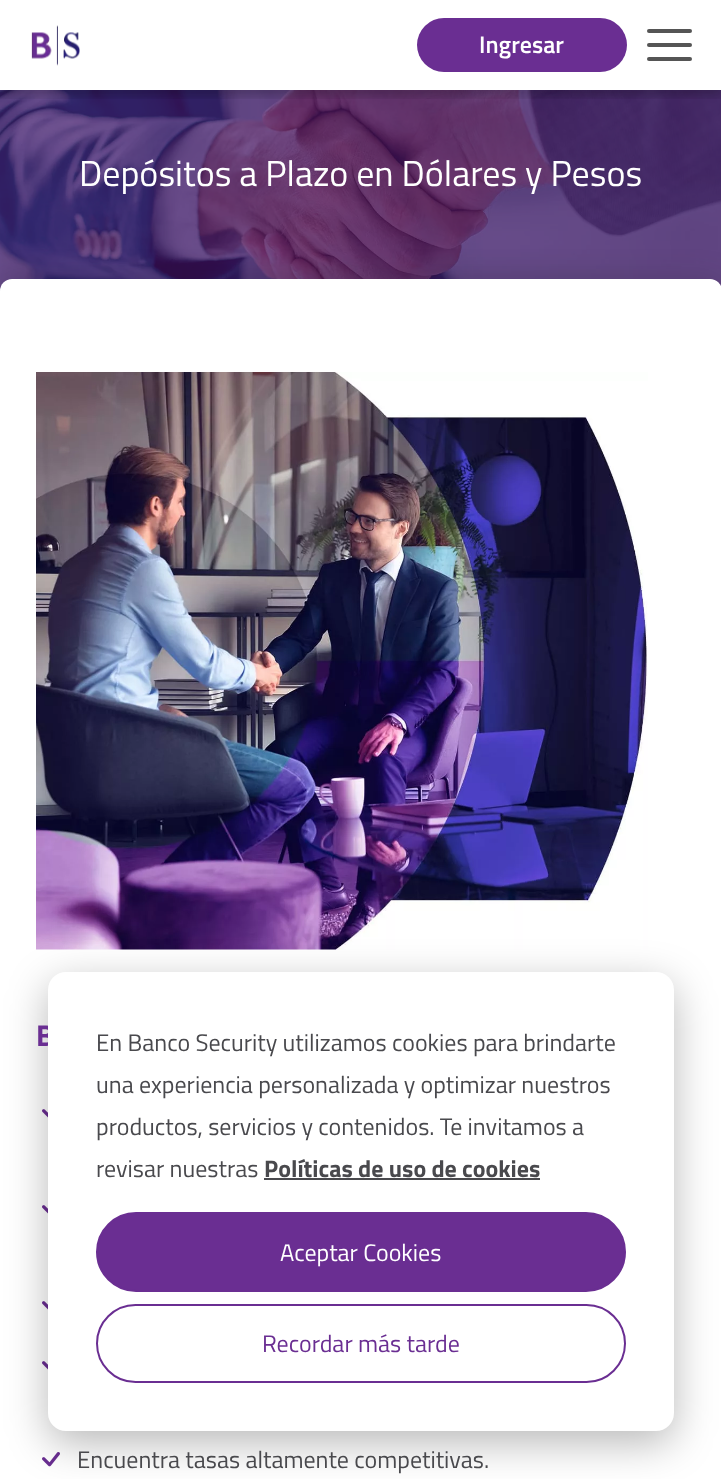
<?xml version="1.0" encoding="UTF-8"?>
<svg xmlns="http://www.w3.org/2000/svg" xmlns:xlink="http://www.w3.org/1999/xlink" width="721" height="1479">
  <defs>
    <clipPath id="clip1"><rect x="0" y="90" width="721" height="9" /></clipPath>
  </defs>
  <rect width="100%" height="100%" fill="#ffffff" />
  <image x="0" y="90" width="721" height="201" xlink:href="image2.png" />
  <g clip-path="url(#clip1)">
    <rect y="6" width="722" height="90" fill="#000000" fill-opacity="0.1" filter="blur(4px)" />
  </g>
  <image x="31" y="25" width="49" height="41" xlink:href="image1.png" />
  <rect x="417" y="18" width="210" height="54" rx="27" fill="#6a2e92" />
  <rect x="647" y="57" width="45" height="4" rx="2" fill="#555555" />
  <rect x="647" y="43" width="45" height="4" rx="2" fill="#555555" />
  <rect x="647" y="29" width="45" height="4" rx="2" fill="#555555" />
  <g clip-path="url(#clip1)">
    <rect y="6" width="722" height="90" fill="#000000" fill-opacity="0.1" filter="blur(4px)" />
  </g>
  <rect y="279" width="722" height="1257" rx="12" fill="#000000" fill-opacity="0.15" filter="blur(15px)" />
  <rect y="279" width="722" height="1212" rx="12" fill="#ffffff" />
  <image x="36" y="372" width="612" height="578" xlink:href="image3.png" />
  <image x="42" y="1109" width="6" height="9" xlink:href="image4.png" />
  <image x="42" y="1205" width="6" height="9" xlink:href="image4.png" />
  <image x="42" y="1301" width="6" height="9" xlink:href="image4.png" />
  <image x="42" y="1361" width="6" height="9" xlink:href="image4.png" />
  <image x="42" y="1452" width="18" height="15" xlink:href="image5.png" />
  <rect x="48" y="984" width="626" height="459" rx="18" fill="#000000" fill-opacity="0.28" filter="blur(21px)" />
  <text x="479" y="53" style="font-family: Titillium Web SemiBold; font-size: 24px; font-weight: 600; fill: #ffffff">Ingresar</text>
  <text x="79" y="186" style="font-family: Titillium Web; font-size: 36px; fill: #ffffff">Depósitos a Plazo en Dólares y Pesos</text>
  <text x="36" y="1046" style="font-family: Titillium Web; font-size: 30px; font-weight: bold; fill: #6a2e92">B</text>
  <text x="77" y="1468" style="font-family: Titillium Web; font-size: 24px; fill: #49494d">Encuentra tasas altamente competitivas.</text>
  <rect x="48" y="972" width="626" height="459" rx="18" fill="#ffffff" />
  <text x="96" y="1051" style="font-family: Titillium Web; font-size: 24px; fill: #49494d">En Banco Security utilizamos cookies para brindarte</text>
  <text x="96" y="1093" style="font-family: Titillium Web; font-size: 24px; fill: #49494d">una experiencia personalizada y optimizar nuestros</text>
  <text x="96" y="1135" style="font-family: Titillium Web; font-size: 24px; fill: #49494d">productos, servicios y contenidos. Te invitamos a</text>
  <text x="96" y="1177" style="font-family: Titillium Web; font-size: 24px; fill: #49494d">revisar nuestras</text>
  <text x="264" y="1177" style="font-family: Titillium Web; font-size: 24px; font-weight: bold; fill: #49494d">Políticas de uso de cookies</text>
  <rect x="264" y="1178" width="276" height="2" fill="#49494d" />
  <rect x="97" y="1213" width="528" height="78" rx="39" fill="#6a2e92" stroke="#6a2e92" stroke-width="2" />
  <text x="280" y="1261" style="font-family: Titillium Web; font-size: 24px; fill: #ffffff">Aceptar Cookies</text>
  <rect x="97" y="1305" width="528" height="77" rx="38.5" fill="none" stroke="#6a2e92" stroke-width="2" />
  <text x="262" y="1352" style="font-family: Titillium Web; font-size: 24px; fill: #6a2e92">Recordar más tarde</text>
</svg>
